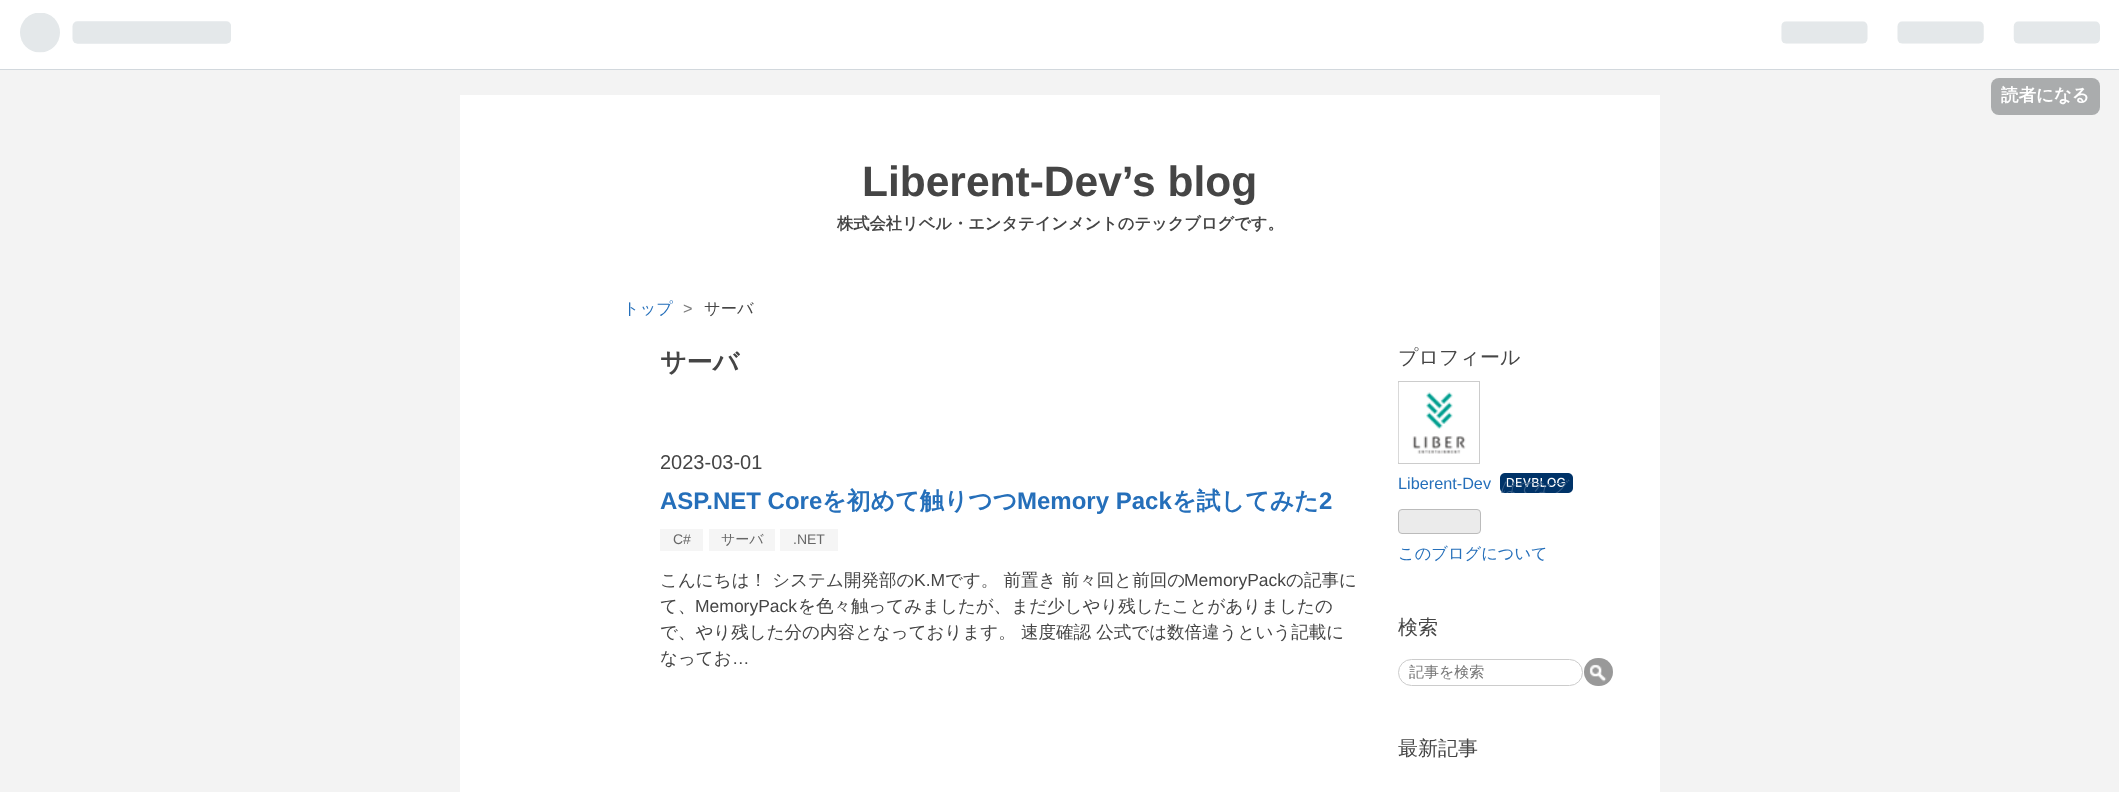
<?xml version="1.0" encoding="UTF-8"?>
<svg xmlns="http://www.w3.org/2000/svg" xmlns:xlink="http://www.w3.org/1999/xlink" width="2119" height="792">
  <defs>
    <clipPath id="clip1"><rect x="1500" y="473" width="73" height="20" /></clipPath>
  </defs>
  <rect width="100%" height="100%" fill="#f3f3f3" />
  <rect width="2119" height="69" fill="#ffffff" />
  <rect y="69" width="2119" height="1" fill="#d2d8dd" />
  <image x="20" y="13" width="211" height="40" xlink:href="image1.png" />
  <image x="1781" y="21" width="319" height="23" xlink:href="image2.png" />
  <rect x="1991" y="78" width="109" height="37" rx="8" fill="#aaacad" />
  <rect x="460" y="95" width="1200" height="697" fill="#ffffff" />
  <rect x="660" y="529" width="43" height="22" fill="#f5f5f5" />
  <rect x="709" y="529" width="66" height="22" fill="#f5f5f5" />
  <rect x="780" y="529" width="58" height="22" fill="#f5f5f5" />
  <rect x="1398.5" y="381.5" width="81" height="82" fill="none" stroke="#cccccc" />
  <image x="1398" y="382" width="68" height="81" xlink:href="image3.png" />
  <image x="1500" y="473" width="73" height="20" xlink:href="image4.png" />
  <rect x="1398.5" y="509.5" width="82" height="24" rx="3.5" fill="#ebebeb" stroke="#bbbbbb" />
  <rect x="1398.5" y="659.5" width="184" height="26" rx="13" fill="none" stroke="#cccccc" />
  <rect x="1584" y="658" width="29" height="28" rx="14" fill="#999999" />
  <image x="1589" y="664" width="18" height="18" xlink:href="image5.png" />
  <text x="2001" y="101" style="font-family: WenQuanYi Zen Hei; font-size: 17.5px; font-weight: bold; fill: #ffffff">読者になる</text>
  <text x="862" y="196" style="font-family: Liberation Sans; font-size: 42.5px; font-weight: bold; fill: #454545">Liberent-Dev’s blog</text>
  <text x="837" y="229" style="font-family: WenQuanYi Zen Hei; font-size: 16.25px; font-weight: bold; fill: #454545">株式会社リベル・エンタテインメントのテックブログです。</text>
  <text x="623" y="314" style="font-family: WenQuanYi Zen Hei; font-size: 16.25px; font-weight: 500; fill: #256fba">トップ</text>
  <text x="683" y="314" style="font-family: Liberation Sans; font-size: 16.25px; fill: #7d7d7d">&gt;</text>
  <text x="704" y="314" style="font-family: WenQuanYi Zen Hei; font-size: 16.25px; font-weight: 500; fill: #454545">サーバ</text>
  <text x="660" y="371" style="font-family: WenQuanYi Zen Hei; font-size: 26px; font-weight: bold; fill: #454545">サーバ</text>
  <text x="660" y="469" style="font-family: Liberation Sans; font-size: 20px; fill: #454545">2023-03-01</text>
  <text x="660" y="509" style="font-family: Liberation Sans; font-size: 24px; font-weight: bold; fill: #256fba">ASP.NET Core</text>
  <text x="822" y="509" style="font-family: WenQuanYi Zen Hei; font-size: 24px; font-weight: bold; fill: #256fba">を初めて触りつつ</text>
  <text x="1017" y="509" style="font-family: Liberation Sans; font-size: 24px; font-weight: bold; fill: #256fba">Memory Pack</text>
  <text x="1172" y="509" style="font-family: WenQuanYi Zen Hei; font-size: 24px; font-weight: bold; fill: #256fba">を試してみた</text>
  <text x="1319" y="509" style="font-family: Liberation Sans; font-size: 24px; font-weight: bold; fill: #256fba">2</text>
  <text x="673" y="544" style="font-family: Liberation Sans; font-size: 14px; fill: #666666">C#</text>
  <text x="721" y="544" style="font-family: WenQuanYi Zen Hei; font-size: 14px; font-weight: 500; fill: #666666">サーバ</text>
  <text x="793" y="544" style="font-family: Liberation Sans; font-size: 14px; fill: #666666">.NET</text>
  <text x="660" y="586" style="font-family: WenQuanYi Zen Hei; font-size: 17.5px; font-weight: 500; fill: #454545">こんにちは！ システム開発部の</text>
  <text x="914" y="586" style="font-family: Liberation Sans; font-size: 17.5px; fill: #454545">K.M</text>
  <text x="945" y="586" style="font-family: WenQuanYi Zen Hei; font-size: 17.5px; font-weight: 500; fill: #454545">です。 前置き 前々回と前回の</text>
  <text x="1184" y="586" style="font-family: Liberation Sans; font-size: 17.5px; fill: #454545">MemoryPack</text>
  <text x="1286" y="586" style="font-family: WenQuanYi Zen Hei; font-size: 17.5px; font-weight: 500; fill: #454545">の記事に</text>
  <text x="660" y="612" style="font-family: WenQuanYi Zen Hei; font-size: 17.5px; font-weight: 500; fill: #454545">て、</text>
  <text x="695" y="612" style="font-family: Liberation Sans; font-size: 17.5px; fill: #454545">MemoryPack</text>
  <text x="798" y="612" style="font-family: WenQuanYi Zen Hei; font-size: 17.5px; font-weight: 500; fill: #454545">を色々触ってみましたが、まだ少しやり残したことがありましたの</text>
  <text x="660" y="638" style="font-family: WenQuanYi Zen Hei; font-size: 17.5px; font-weight: 500; fill: #454545">で、やり残した分の内容となっております。 速度確認 公式では数倍違うという記載に</text>
  <text x="660" y="664" style="font-family: WenQuanYi Zen Hei; font-size: 17.5px; font-weight: 500; fill: #454545">なってお</text>
  <text x="732" y="664" style="font-family: Liberation Sans; font-size: 17.5px; fill: #454545">…</text>
  <text x="1398" y="364" style="font-family: WenQuanYi Zen Hei; font-size: 20px; font-weight: 500; fill: #454545">プロフィール</text>
  <text x="1398" y="489" style="font-family: Liberation Sans; font-size: 16.25px; fill: #256fba">Liberent-Dev</text>
  <g clip-path="url(#clip1)">
    <text x="1500" y="493" style="font-family: WenQuanYi Zen Hei; font-size: 16.25px; font-weight: 500; font-style: italic; fill: #365e88">はてなブ</text>
  </g>
  <text x="1398" y="559" style="font-family: WenQuanYi Zen Hei; font-size: 16.25px; font-weight: 500; fill: #256fba">このブログについて</text>
  <text x="1398" y="634" style="font-family: WenQuanYi Zen Hei; font-size: 20px; font-weight: 500; fill: #454545">検索</text>
  <text x="1409" y="677" style="font-family: WenQuanYi Zen Hei; font-size: 15px; font-weight: 500; fill: #757575">記事を検索</text>
  <text x="1398" y="755" style="font-family: WenQuanYi Zen Hei; font-size: 20px; font-weight: 500; fill: #454545">最新記事</text>
</svg>
